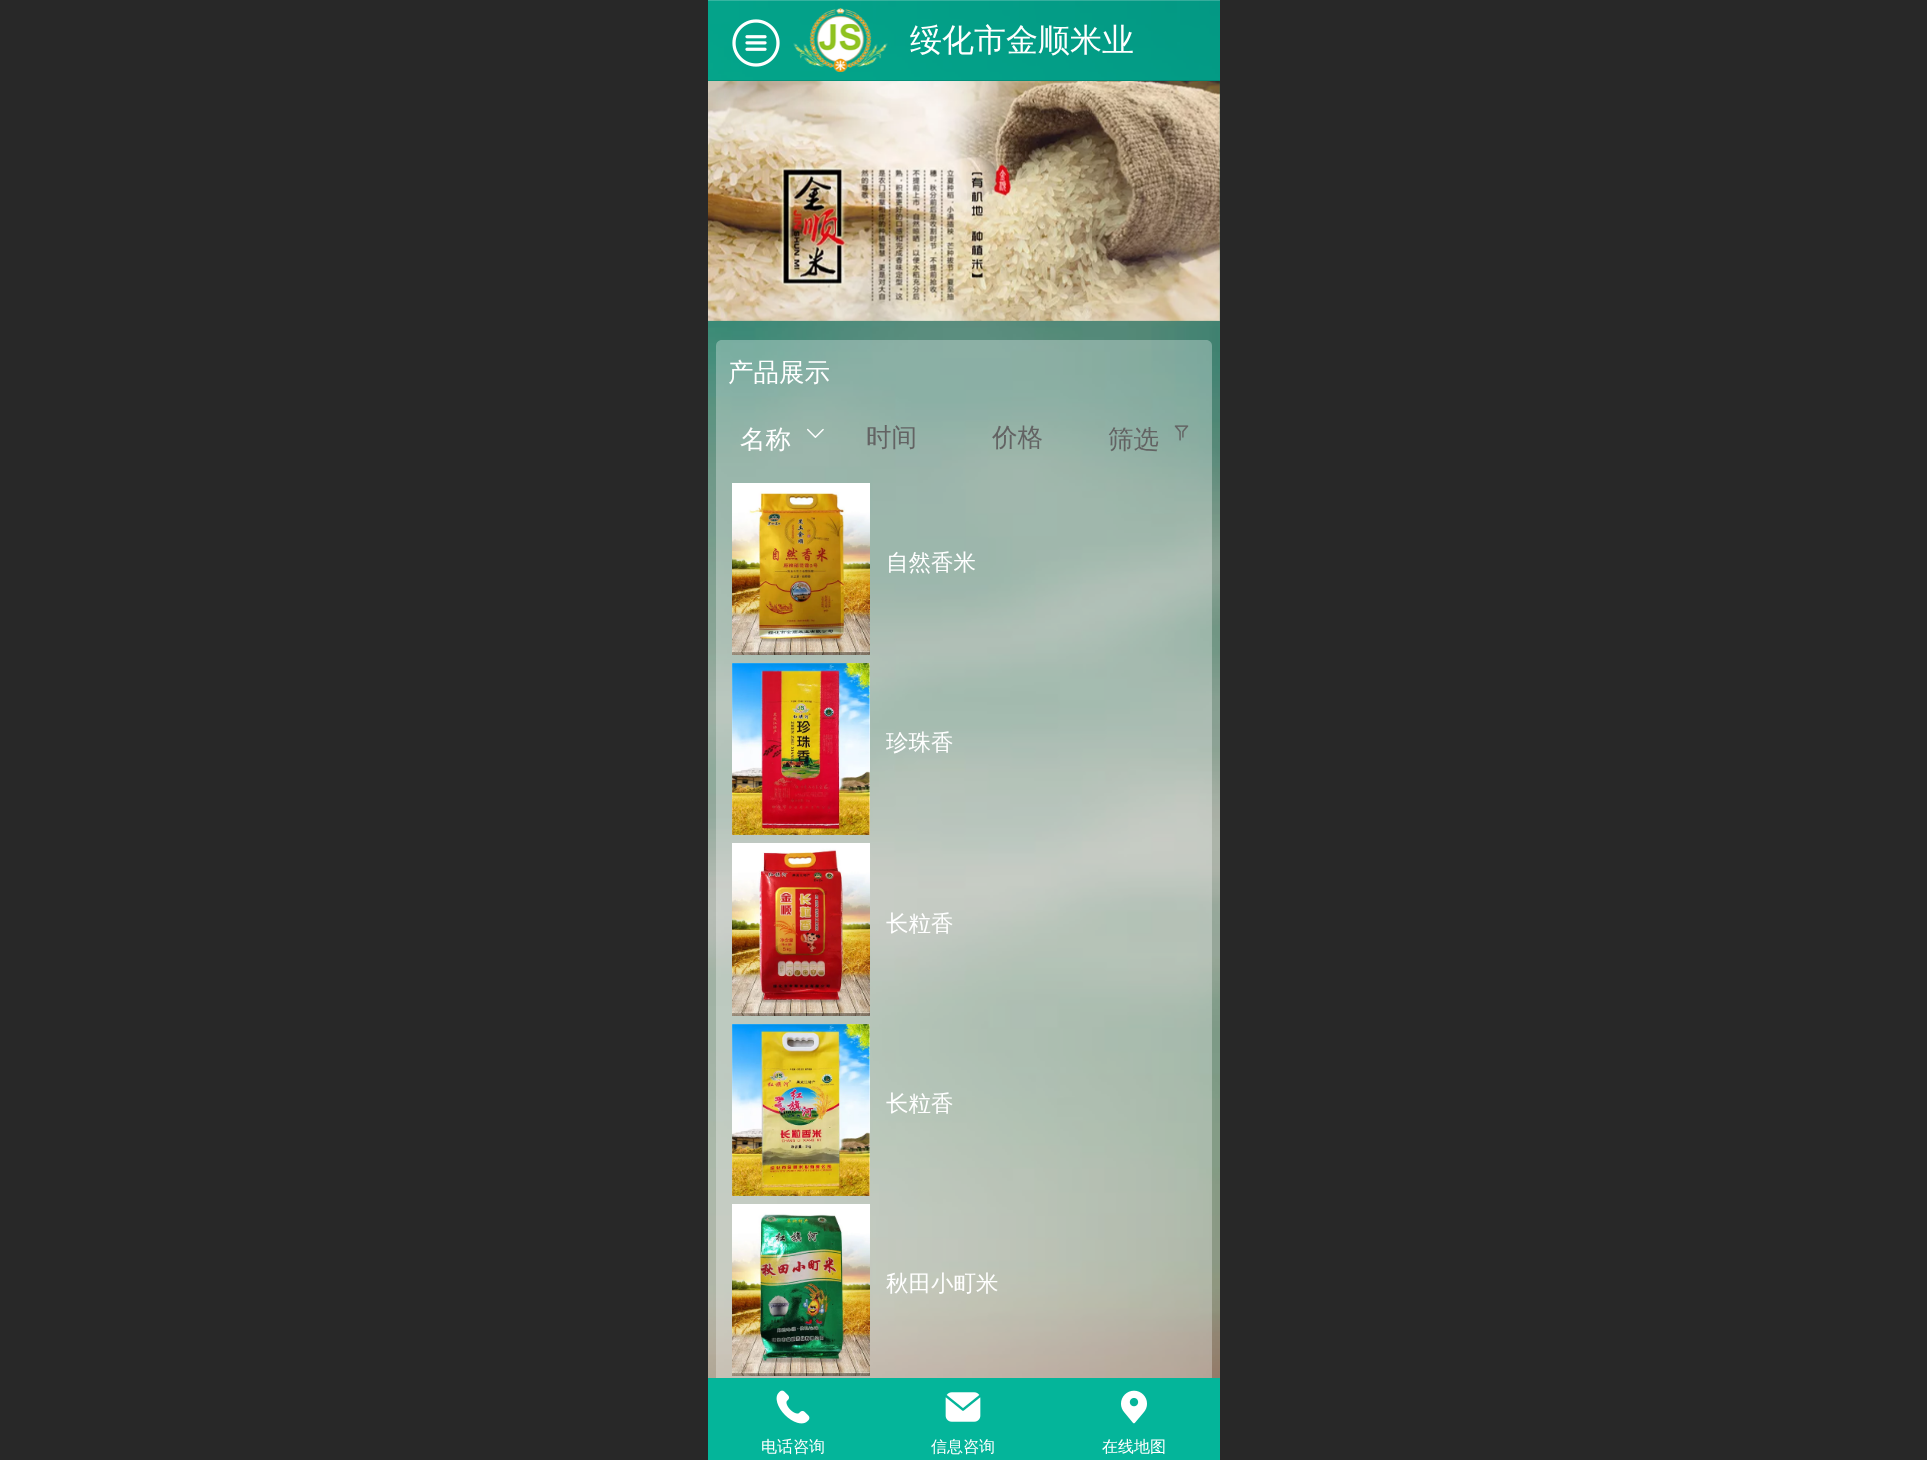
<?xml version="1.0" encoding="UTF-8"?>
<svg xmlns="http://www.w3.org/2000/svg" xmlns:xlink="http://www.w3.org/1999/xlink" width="1927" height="1460">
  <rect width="100%" height="100%" fill="#ffffff" />
  <rect width="708" height="1460" fill="#282828" />
  <image x="708" y="0" width="512" height="1378" xlink:href="image1.png" />
  <rect x="708" width="512" height="81" fill="#04b59a" fill-opacity="0.7" />
  <image x="732" y="19" width="48" height="48" xlink:href="image2.png" />
  <rect x="708" width="512" height="1" fill="#ffffff" fill-opacity="0.2" />
  <rect x="708" y="80" width="512" height="1" fill="#000000" fill-opacity="0.1" />
  <image x="793" y="8" width="95" height="64" xlink:href="image3.png" />
  <image x="708" y="81" width="128" height="240" xlink:href="image4.png" />
  <image x="836" y="81" width="128" height="240" xlink:href="image5.png" />
  <image x="964" y="81" width="128" height="240" xlink:href="image6.png" />
  <image x="1092" y="81" width="128" height="240" xlink:href="image7.png" />
  <path d="M 722 340 h 484 c 3.5 0 6 2.5 6 6 v 58 h -496 v -58 c 0 -3.5 2.5 -6 6 -6 z" fill="#ffffff" fill-opacity="0.3" />
  <rect x="716" y="404" width="496" height="974" fill="#ffffff" fill-opacity="0.3" />
  <image x="807" y="428" width="17" height="10" xlink:href="image8.png" />
  <image x="1174" y="425" width="15" height="16" xlink:href="image9.png" />
  <image x="732" y="483" width="138" height="172" xlink:href="image10.png" />
  <image x="732" y="663" width="138" height="172" xlink:href="image11.png" />
  <image x="732" y="843" width="138" height="173" xlink:href="image12.png" />
  <image x="732" y="1024" width="138" height="172" xlink:href="image13.png" />
  <image x="732" y="1204" width="138" height="172" xlink:href="image14.png" />
  <rect x="708" y="1378" width="512" height="82" fill="#04b59a" />
  <image x="776" y="1390" width="34" height="34" xlink:href="image15.png" />
  <image x="945" y="1392" width="36" height="30" xlink:href="image16.png" />
  <image x="1121" y="1390" width="26" height="34" xlink:href="image17.png" />
  <rect x="1220" width="707" height="1460" fill="#282828" />
  <text x="910" y="51" style="font-family: WenQuanYi Zen Hei; font-size: 32px; font-weight: 500; fill: #ffffff">绥化市金顺米业</text>
  <text x="728" y="381" style="font-family: WenQuanYi Zen Hei; font-size: 25.5px; font-weight: 500; fill: #ffffff">产品展示</text>
  <text x="740" y="448" style="font-family: WenQuanYi Zen Hei; font-size: 25.5px; font-weight: 500; fill: #ffffff">名称</text>
  <text x="866" y="446" style="font-family: WenQuanYi Zen Hei; font-size: 25.5px; font-weight: 500; fill: #636363">时间</text>
  <text x="992" y="446" style="font-family: WenQuanYi Zen Hei; font-size: 25.5px; font-weight: 500; fill: #636363">价格</text>
  <text x="1108" y="448" style="font-family: WenQuanYi Zen Hei; font-size: 25.5px; font-weight: 500; fill: #636363">筛选</text>
  <text x="886" y="570" style="font-family: WenQuanYi Zen Hei; font-size: 22.5px; font-weight: 500; fill: #ffffff">自然香米</text>
  <text x="886" y="750" style="font-family: WenQuanYi Zen Hei; font-size: 22.5px; font-weight: 500; fill: #ffffff">珍珠香</text>
  <text x="886" y="931" style="font-family: WenQuanYi Zen Hei; font-size: 22.5px; font-weight: 500; fill: #ffffff">长粒香</text>
  <text x="886" y="1111" style="font-family: WenQuanYi Zen Hei; font-size: 22.5px; font-weight: 500; fill: #ffffff">长粒香</text>
  <text x="886" y="1291" style="font-family: WenQuanYi Zen Hei; font-size: 22.5px; font-weight: 500; fill: #ffffff">秋田小町米</text>
  <text x="761" y="1452" style="font-family: WenQuanYi Zen Hei; font-size: 16px; font-weight: 500; fill: #ffffff">电话咨询</text>
  <text x="931" y="1452" style="font-family: WenQuanYi Zen Hei; font-size: 16px; font-weight: 500; fill: #ffffff">信息咨询</text>
  <text x="1102" y="1452" style="font-family: WenQuanYi Zen Hei; font-size: 16px; font-weight: 500; fill: #ffffff">在线地图</text>
</svg>
